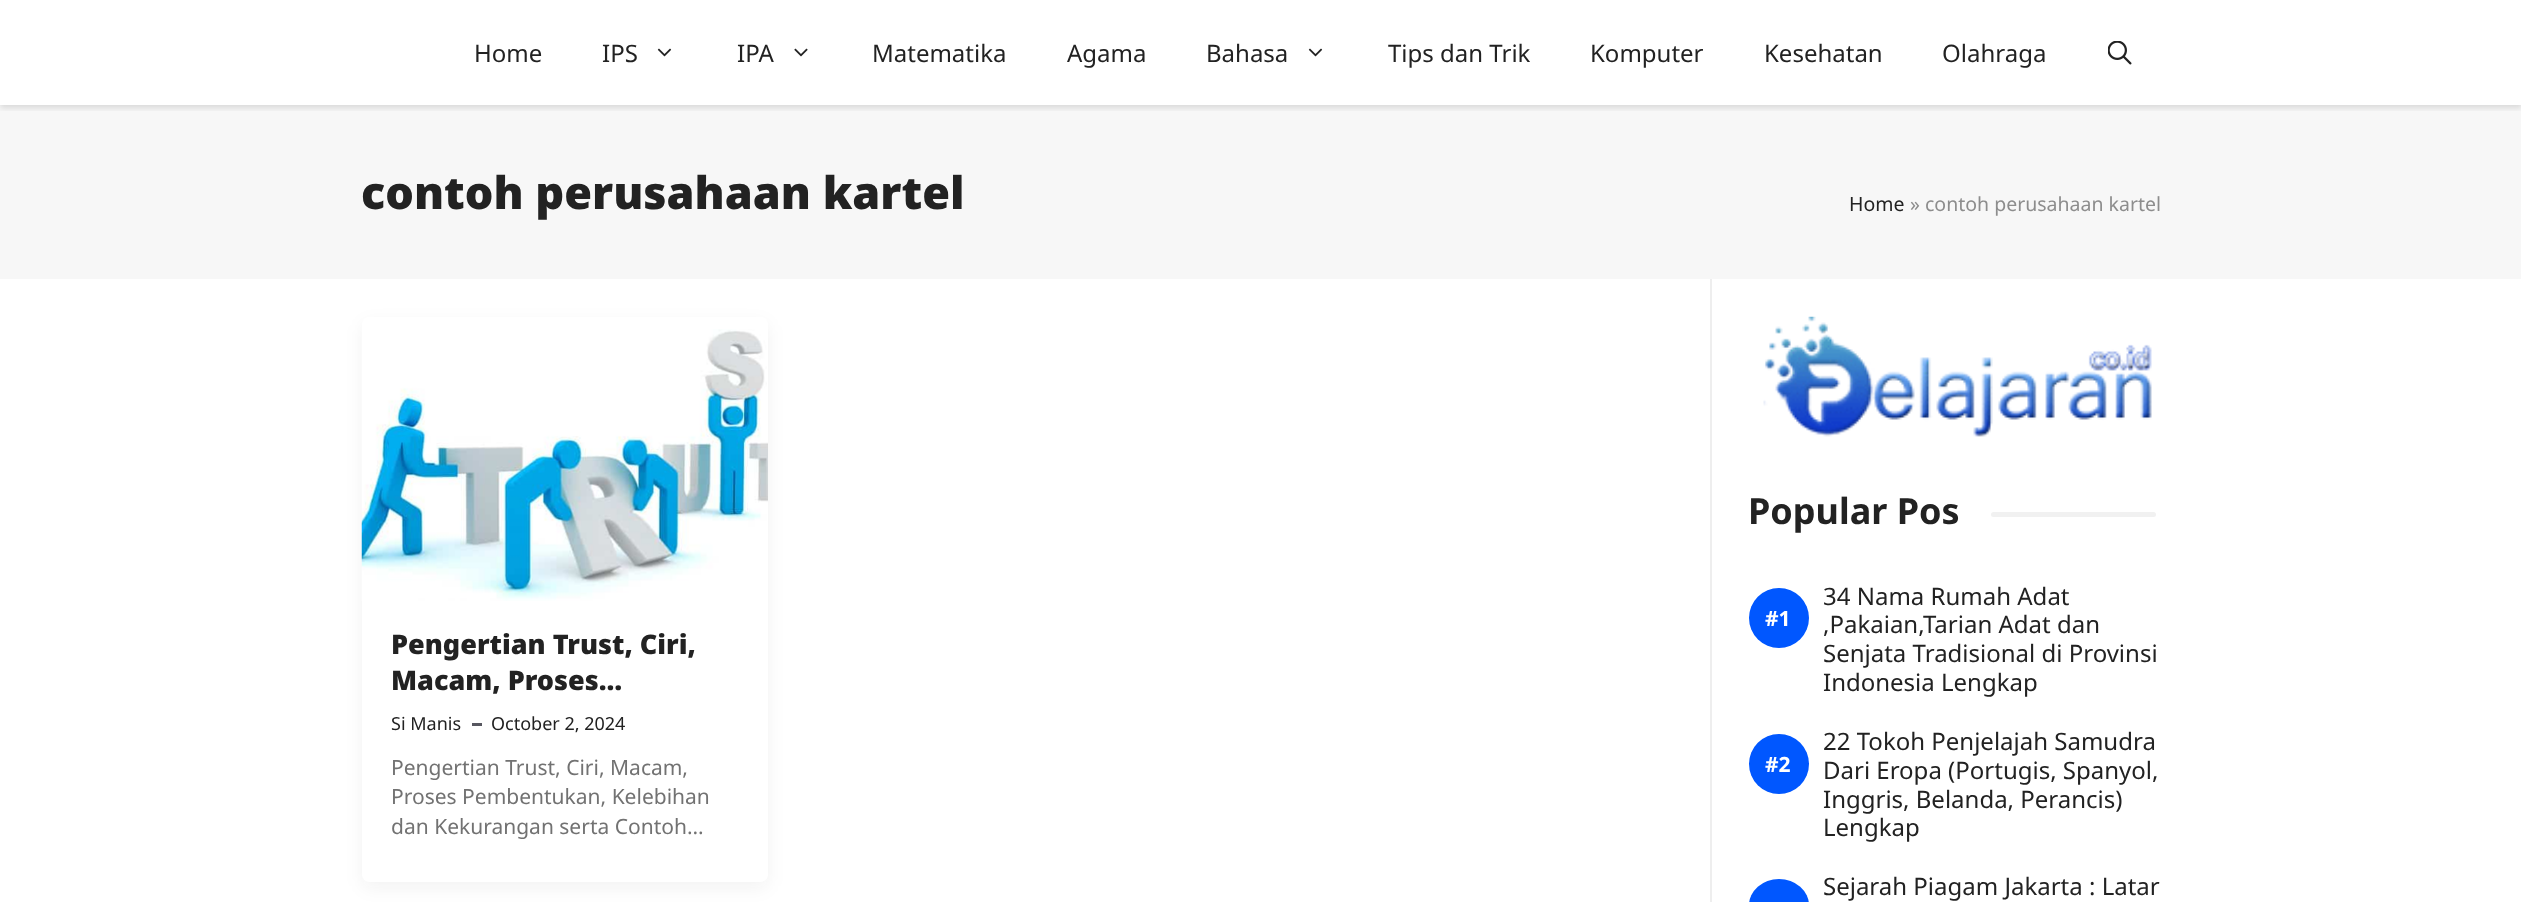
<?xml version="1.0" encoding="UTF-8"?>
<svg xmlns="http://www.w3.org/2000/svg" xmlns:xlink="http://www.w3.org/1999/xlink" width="2521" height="902">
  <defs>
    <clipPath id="clip1"><rect x="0" y="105" width="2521" height="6" /></clipPath>
    <clipPath id="clip2"><path d="M 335 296 h 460 v 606 h -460 z m 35 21 h 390 c 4.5 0 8 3.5 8 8 v 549 c 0 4.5 -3.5 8 -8 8 h -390 c -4.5 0 -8 -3.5 -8 -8 v -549 c 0 -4.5 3.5 -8 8 -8 z" clip-rule="evenodd" /></clipPath>
  </defs>
  <rect width="100%" height="100%" fill="#ffffff" />
  <rect y="105" width="2521" height="174" fill="#f7f7f7" />
  <g clip-path="url(#clip1)">
    <rect y="3" width="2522" height="105" fill="#000000" fill-opacity="0.12" filter="blur(3px)" />
  </g>
  <image x="657" y="48" width="15" height="9" xlink:href="image1.png" />
  <image x="794" y="48" width="14" height="9" xlink:href="image2.png" />
  <image x="1308" y="48" width="15" height="9" xlink:href="image1.png" />
  <image x="2108" y="41" width="24" height="24" xlink:href="image3.png" />
  <rect x="1710" y="279" width="2" height="623" fill="#eeeeee" />
  <g clip-path="url(#clip2)">
    <rect x="363" y="324" width="404" height="563" rx="6" fill="#0b0f19" fill-opacity="0.06" filter="blur(9px)" />
  </g>
  <image x="361" y="329" width="407" height="272" xlink:href="image4.png" />
  <rect x="472" y="723" width="10" height="3" fill="#575760" />
  <image x="1763" y="316" width="389" height="121" xlink:href="image5.png" />
  <rect x="1991" y="512" width="165" height="5" rx="2.5" fill="#f1f1f1" />
  <circle cx="1779" cy="618" r="30" fill="#0057ff" />
  <circle cx="1779" cy="764" r="30" fill="#0057ff" />
  <rect x="1749" y="879" width="60" height="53" rx="30" fill="#0057ff" />
  <text x="474" y="62" style="font-family: Noto Sans; font-size: 24px; fill: #222222">Home</text>
  <text x="602" y="62" style="font-family: Noto Sans; font-size: 24px; fill: #222222">IPS</text>
  <text x="737" y="62" style="font-family: Noto Sans; font-size: 24px; fill: #222222">IPA</text>
  <text x="872" y="62" style="font-family: Noto Sans; font-size: 24px; fill: #222222">Matematika</text>
  <text x="1067" y="62" style="font-family: Noto Sans; font-size: 24px; fill: #222222">Agama</text>
  <text x="1206" y="62" style="font-family: Noto Sans; font-size: 24px; fill: #222222">Bahasa</text>
  <text x="1388" y="62" style="font-family: Noto Sans; font-size: 24px; fill: #222222">Tips dan Trik</text>
  <text x="1590" y="62" style="font-family: Noto Sans; font-size: 24px; fill: #222222">Komputer</text>
  <text x="1764" y="62" style="font-family: Noto Sans; font-size: 24px; fill: #222222">Kesehatan</text>
  <text x="1942" y="62" style="font-family: Noto Sans; font-size: 24px; fill: #222222">Olahraga</text>
  <text x="361" y="209" style="font-family: Noto Sans; font-size: 45px; font-weight: 900; fill: #222222">contoh perusahaan kartel</text>
  <text x="1849" y="211" style="font-family: Noto Sans; font-size: 19.5px; fill: #222222">Home</text>
  <text x="1910" y="211" style="font-family: Noto Sans; font-size: 19.5px; fill: #8d8d8d">» contoh perusahaan kartel</text>
  <text x="391" y="654" style="font-family: Noto Sans; font-size: 27px; font-weight: 900; fill: #222222">Pengertian Trust, Ciri,</text>
  <text x="391" y="690" style="font-family: Noto Sans; font-size: 27px; font-weight: 900; fill: #222222">Macam, Proses…</text>
  <text x="391" y="730" style="font-family: Noto Sans; font-size: 18px; fill: #222222">Si Manis</text>
  <text x="491" y="730" style="font-family: Noto Sans; font-size: 18px; fill: #222222">October 2, 2024</text>
  <text x="391" y="775" style="font-family: Noto Sans; font-size: 21px; fill: #727272">Pengertian Trust, Ciri, Macam,</text>
  <text x="391" y="804" style="font-family: Noto Sans; font-size: 21px; fill: #727272">Proses Pembentukan, Kelebihan</text>
  <text x="391" y="834" style="font-family: Noto Sans; font-size: 21px; fill: #727272">dan Kekurangan serta Contoh…</text>
  <text x="1748" y="524" style="font-family: Noto Sans; font-size: 36px; font-weight: bold; fill: #222222">Popular Pos</text>
  <text x="1765" y="626" style="font-family: Noto Sans; font-size: 21px; font-weight: bold; fill: #ffffff">#1</text>
  <text x="1823" y="605" style="font-family: Noto Sans; font-size: 24px; fill: #222222">34 Nama Rumah Adat</text>
  <text x="1823" y="633" style="font-family: Noto Sans; font-size: 24px; fill: #222222">,Pakaian,Tarian Adat dan</text>
  <text x="1823" y="662" style="font-family: Noto Sans; font-size: 24px; fill: #222222">Senjata Tradisional di Provinsi</text>
  <text x="1823" y="691" style="font-family: Noto Sans; font-size: 24px; fill: #222222">Indonesia Lengkap</text>
  <text x="1765" y="772" style="font-family: Noto Sans; font-size: 21px; font-weight: bold; fill: #ffffff">#2</text>
  <text x="1823" y="750" style="font-family: Noto Sans; font-size: 24px; fill: #222222">22 Tokoh Penjelajah Samudra</text>
  <text x="1823" y="779" style="font-family: Noto Sans; font-size: 24px; fill: #222222">Dari Eropa (Portugis, Spanyol,</text>
  <text x="1823" y="808" style="font-family: Noto Sans; font-size: 24px; fill: #222222">Inggris, Belanda, Perancis)</text>
  <text x="1823" y="836" style="font-family: Noto Sans; font-size: 24px; fill: #222222">Lengkap</text>
  <text x="1823" y="895" style="font-family: Noto Sans; font-size: 24px; fill: #222222">Sejarah Piagam Jakarta : Latar</text>
</svg>
